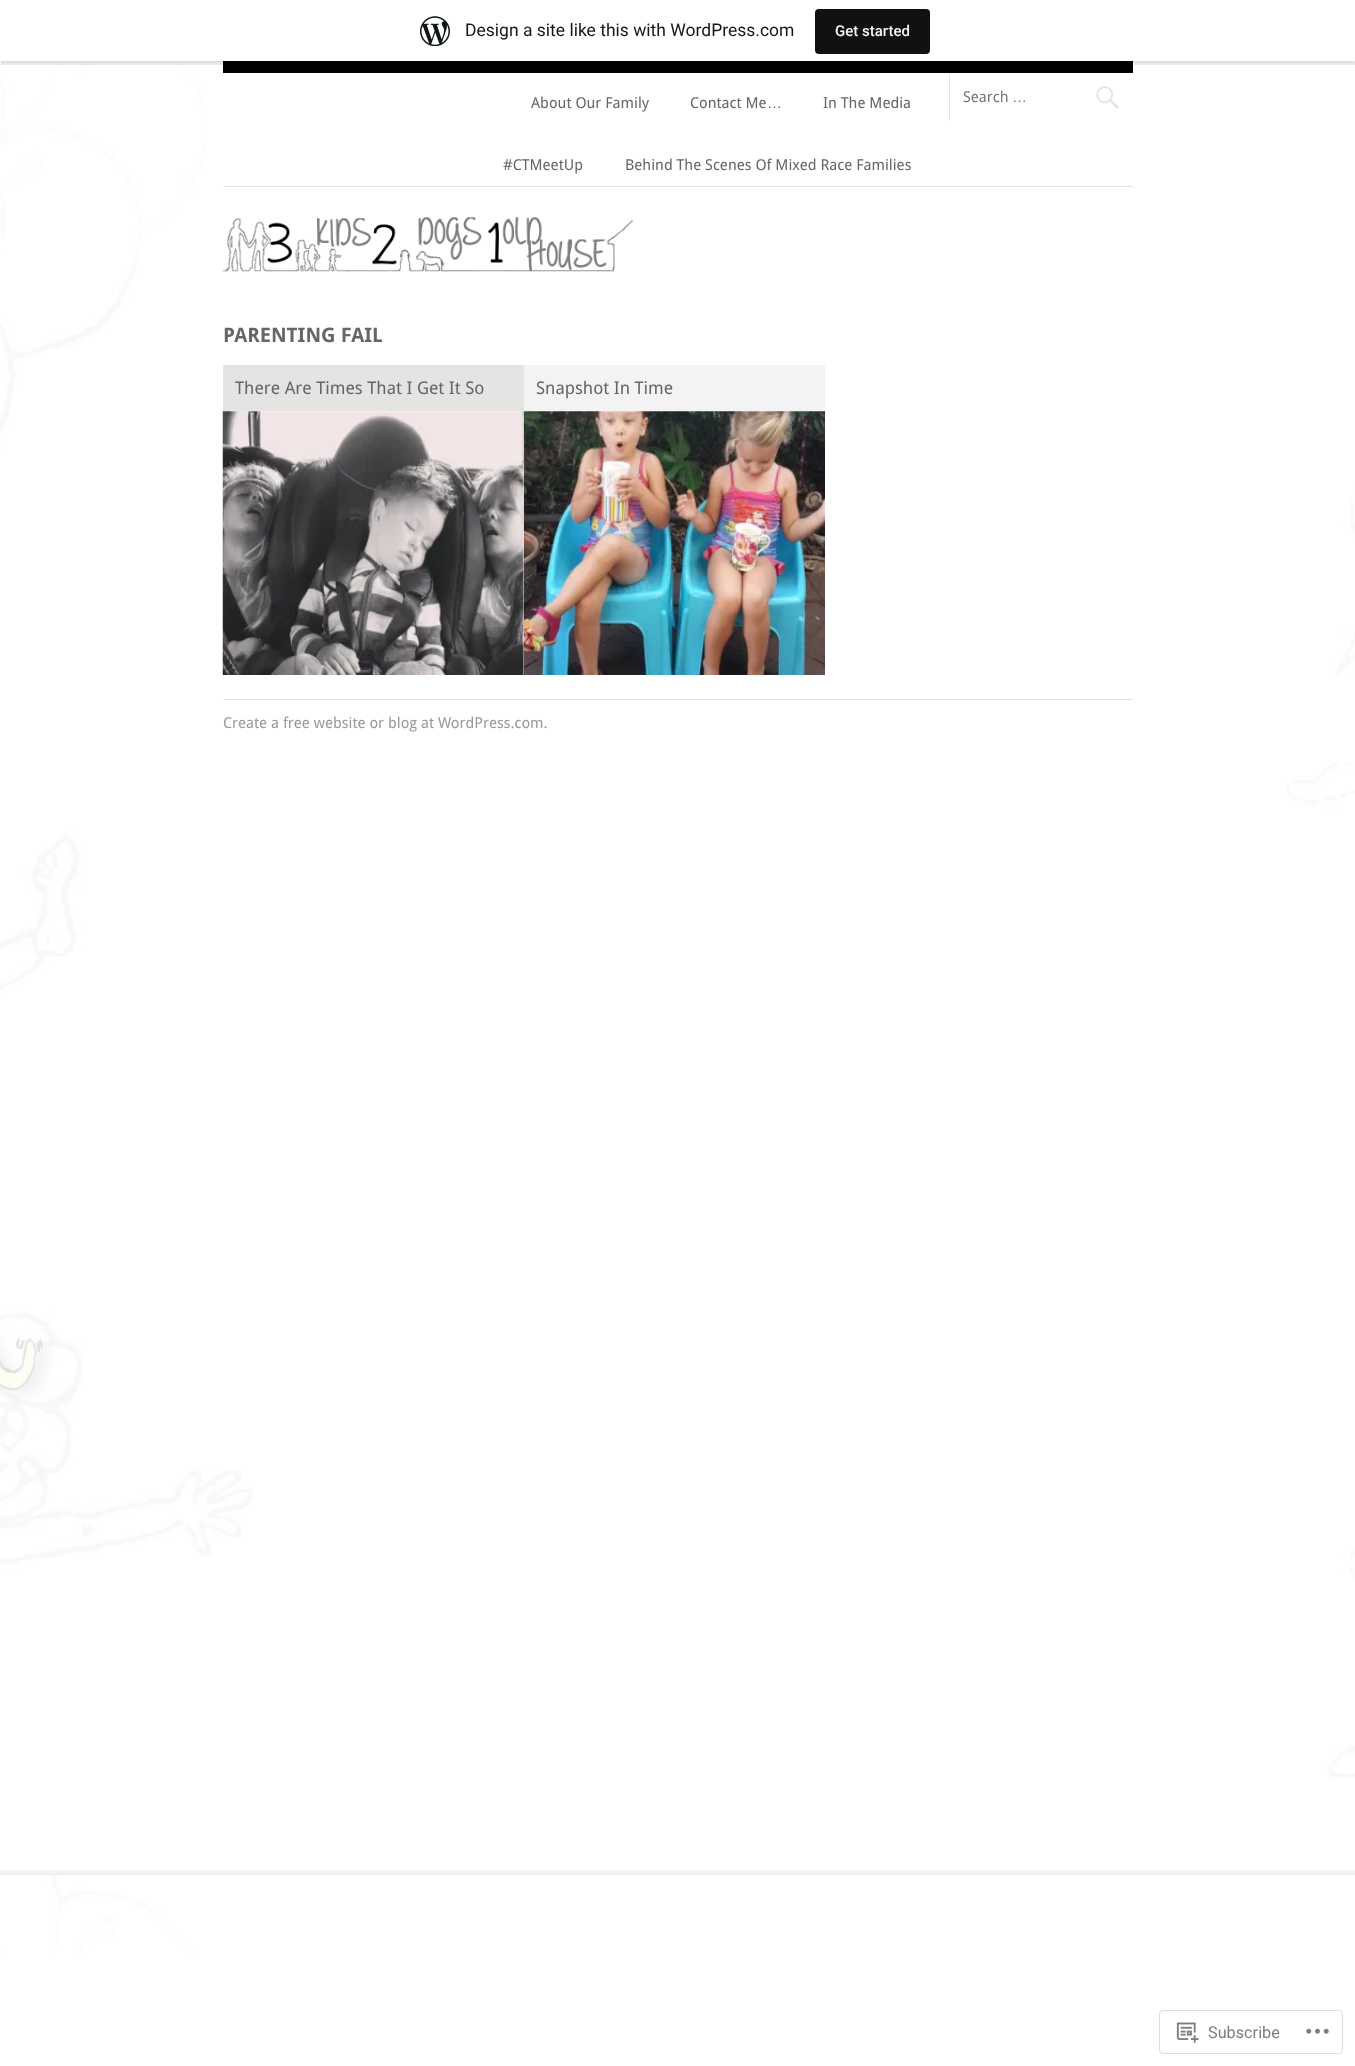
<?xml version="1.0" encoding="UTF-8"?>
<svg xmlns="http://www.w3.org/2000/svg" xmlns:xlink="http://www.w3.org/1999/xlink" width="1355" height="2066">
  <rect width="100%" height="100%" fill="#ffffff" />
  <image x="0" y="61" width="1355" height="1896" xlink:href="image1.png" />
  <rect x="223" y="61" width="910" height="12" fill="#000000" />
  <rect y="1" width="1355" height="62" fill="#000000" fill-opacity="0.05" filter="blur(1px)" />
  <path d="M 1 61 v 4 h 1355 v -61 h -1 v 57 z" fill="#000000" fill-opacity="0.08" />
  <rect width="1355" height="61" fill="#ffffff" />
  <image x="420" y="16" width="30" height="30" xlink:href="image2.png" />
  <rect x="815" y="9" width="115" height="45" rx="4" fill="#111111" />
  <rect x="223" y="186" width="910" height="1" fill="#e4e4e2" />
  <rect x="949" y="73" width="1" height="48" fill="#e4e4e2" />
  <image x="1096" y="86" width="23" height="23" xlink:href="image3.png" />
  <image x="222" y="217" width="411" height="55" xlink:href="image4.png" />
  <rect x="223" y="365" width="301" height="46" fill="#e4e4e2" />
  <image x="222" y="411" width="302" height="264" xlink:href="image5.png" />
  <rect x="524" y="365" width="301" height="46" fill="#f3f3f3" />
  <image x="523" y="411" width="302" height="264" xlink:href="image6.png" />
  <rect x="223" y="699" width="910" height="1" fill="#e4e4e2" />
  <rect x="1159.5" y="2010.5" width="183" height="43" rx="3.5" fill="none" stroke="#dddddf" />
  <image x="1176" y="2022" width="23" height="21" xlink:href="image7.png" />
  <image x="1306" y="2028" width="23" height="6" xlink:href="image8.png" />
  <text x="465" y="36" style="font-family: Roboto; font-size: 17.5px; fill: #171717">Design a site like this with WordPress.com</text>
  <text x="835" y="36" style="font-family: Roboto; font-size: 15px; font-weight: 500; fill: #f6f7f7">Get started</text>
  <text x="531" y="108" style="font-family: Droid Sans; font-size: 15px; fill: #666666">About Our Family</text>
  <text x="690" y="108" style="font-family: Droid Sans; font-size: 15px; fill: #666666">Contact Me</text>
  <text x="767" y="108" style="font-family: Liberation Sans; font-size: 15px; fill: #666666">…</text>
  <text x="823" y="108" style="font-family: Droid Sans; font-size: 15px; fill: #666666">In The Media</text>
  <text x="503" y="170" style="font-family: Droid Sans; font-size: 15px; fill: #666666">#CTMeetUp</text>
  <text x="625" y="170" style="font-family: Droid Sans; font-size: 15px; fill: #666666">Behind The Scenes Of Mixed Race Families</text>
  <text x="963" y="102" style="font-family: Droid Sans; font-size: 15px; fill: #757575">Search</text>
  <text x="1012" y="102" style="font-family: Liberation Sans; font-size: 15px; fill: #757575">…</text>
  <text x="223" y="342" style="font-family: Droid Sans; font-size: 20px; font-weight: bold; fill: #666666">PARENTING FAIL</text>
  <text x="235" y="394" style="font-family: Droid Sans; font-size: 17.5px; fill: #666666">There Are Times That I Get It So</text>
  <text x="536" y="394" style="font-family: Droid Sans; font-size: 17.5px; fill: #666666">Snapshot In Time</text>
  <text x="223" y="728" style="font-family: Droid Sans; font-size: 15px; fill: #999999">Create a free website or blog at WordPress.com.</text>
  <text x="1208" y="2038" style="font-family: Roboto; font-size: 16.25px; fill: #7b7f85">Subscribe</text>
</svg>
